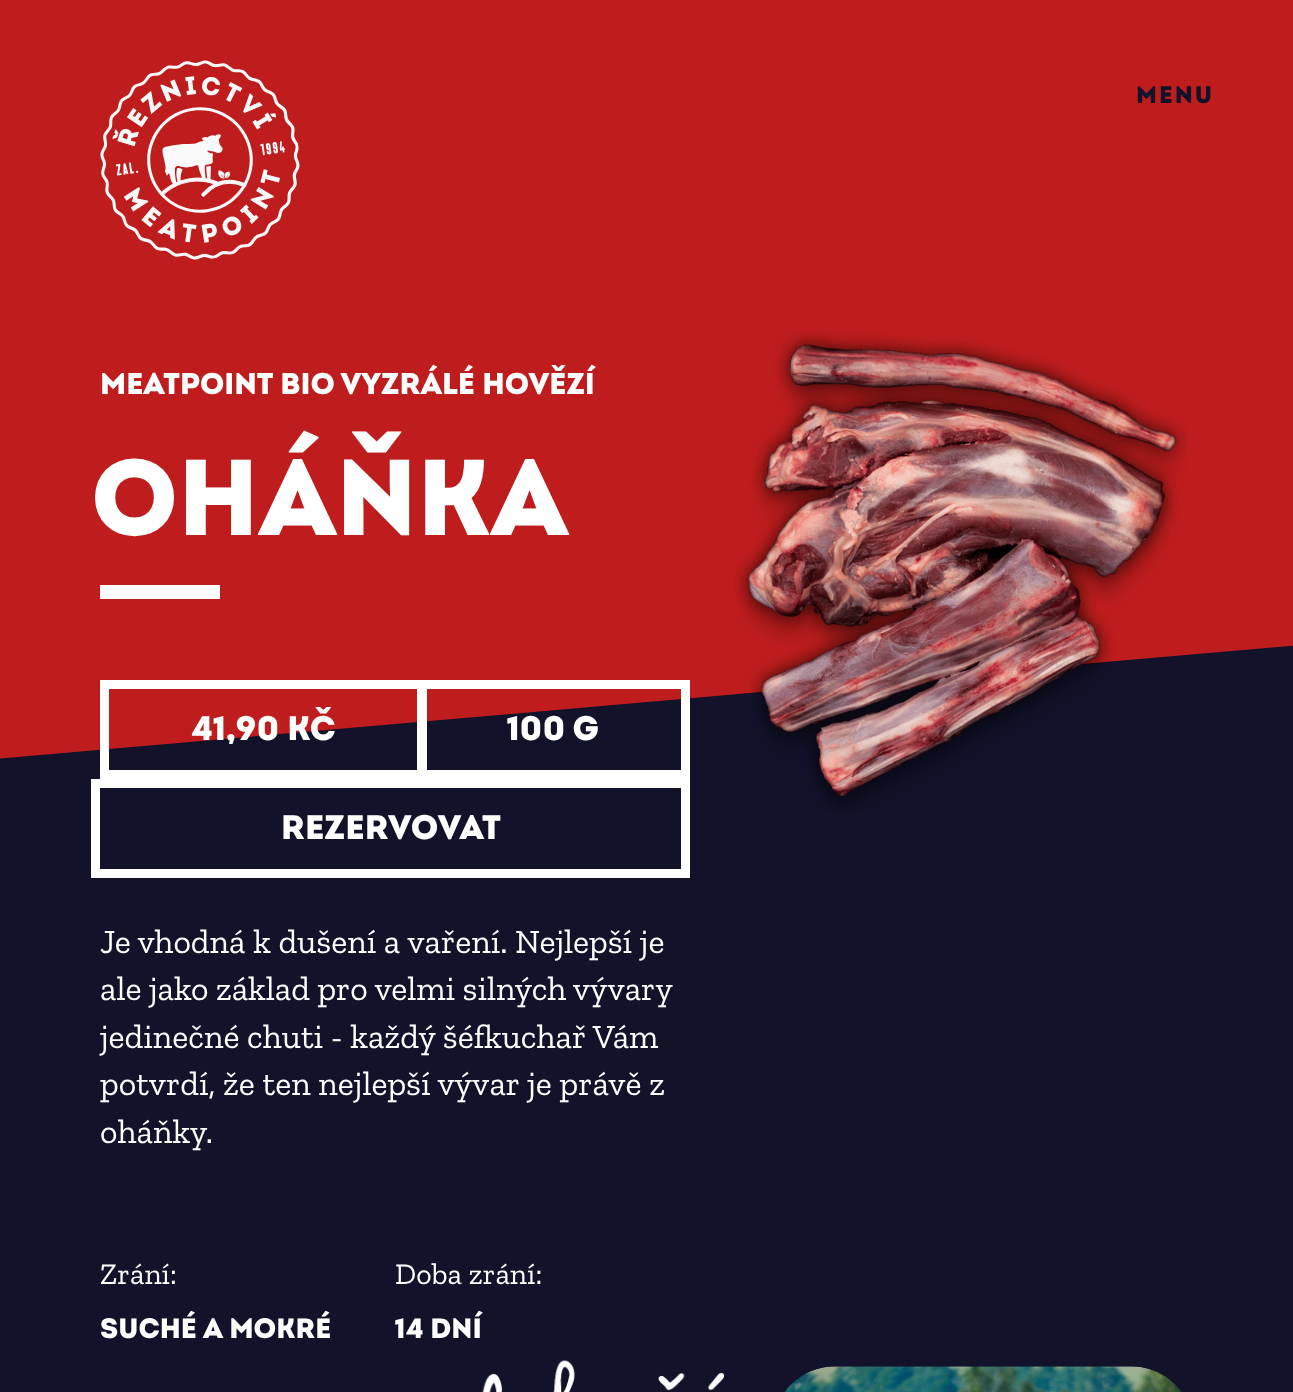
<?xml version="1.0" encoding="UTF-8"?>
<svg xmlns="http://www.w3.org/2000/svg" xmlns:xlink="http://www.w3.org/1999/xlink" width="1293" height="1392">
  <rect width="100%" height="100%" fill="#12122b" />
  <path d="M -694 -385 l 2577 -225 l 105 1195 l -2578 225 z" fill="#bf1d1d" />
  <image x="100" y="60" width="200" height="200" xlink:href="image1.png" />
  <rect x="100" y="585" width="120" height="14" fill="#ffffff" />
  <rect x="104.5" y="684.5" width="317" height="90" fill="none" stroke="#ffffff" stroke-width="9" />
  <rect x="422.5" y="684.5" width="263" height="90" fill="none" stroke="#ffffff" stroke-width="9" />
  <rect x="95.5" y="783.5" width="590" height="90" fill="none" stroke="#ffffff" stroke-width="9" />
  <image x="734" y="331" width="454" height="482" xlink:href="image2.png" />
  <image x="482" y="1360" width="243" height="32" xlink:href="image3.png" />
  <image x="785" y="1366" width="397" height="26" xlink:href="image4.png" />
  <text x="1136" y="103" style="font-family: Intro; font-size: 24px; font-weight: 900; letter-spacing: 2px; fill: #12122b">MENU</text>
  <text x="100" y="394" style="font-family: Intro; font-size: 30px; font-weight: 900; fill: #ffffff">MEATPOINT BIO VYZRÁLÉ HOVĚZÍ</text>
  <text x="91" y="535" style="font-family: Intro; font-size: 107.5px; font-weight: 900; fill: #ffffff">OHÁŇKA</text>
  <text x="191" y="740" style="font-family: Intro; font-size: 34px; font-weight: 900; fill: #ffffff">41,90 KČ</text>
  <text x="507" y="740" style="font-family: Intro; font-size: 34px; font-weight: 900; fill: #ffffff">100 G</text>
  <text x="281" y="839" style="font-family: Intro; font-size: 34px; font-weight: 900; fill: #ffffff">REZERVOVAT</text>
  <text x="100" y="953" style="font-family: Zilla Slab; font-size: 34px; fill: #ffffff">Je vhodná k dušení a vaření. Nejlepší je</text>
  <text x="100" y="1000" word-spacing="-0.25" style="font-family: Zilla Slab; font-size: 34px; fill: #ffffff">ale jako základ pro velmi silných vývary</text>
  <text x="100" y="1048" style="font-family: Zilla Slab; font-size: 34px; fill: #ffffff">jedinečné chuti - každý šéfkuchař Vám</text>
  <text x="100" y="1095" style="font-family: Zilla Slab; font-size: 34px; fill: #ffffff">potvrdí, že ten nejlepší vývar je právě z</text>
  <text x="100" y="1143" style="font-family: Zilla Slab; font-size: 34px; fill: #ffffff">oháňky.</text>
  <text x="100" y="1284" style="font-family: Zilla Slab; font-size: 30px; fill: #ffffff">Zrání:</text>
  <text x="100" y="1338" style="font-family: Intro; font-size: 28px; font-weight: 900; fill: #ffffff">SUCHÉ A MOKRÉ</text>
  <text x="395" y="1284" style="font-family: Zilla Slab; font-size: 30px; fill: #ffffff">Doba zrání:</text>
  <text x="395" y="1338" style="font-family: Intro; font-size: 28px; font-weight: 900; fill: #ffffff">14 DNÍ</text>
</svg>
